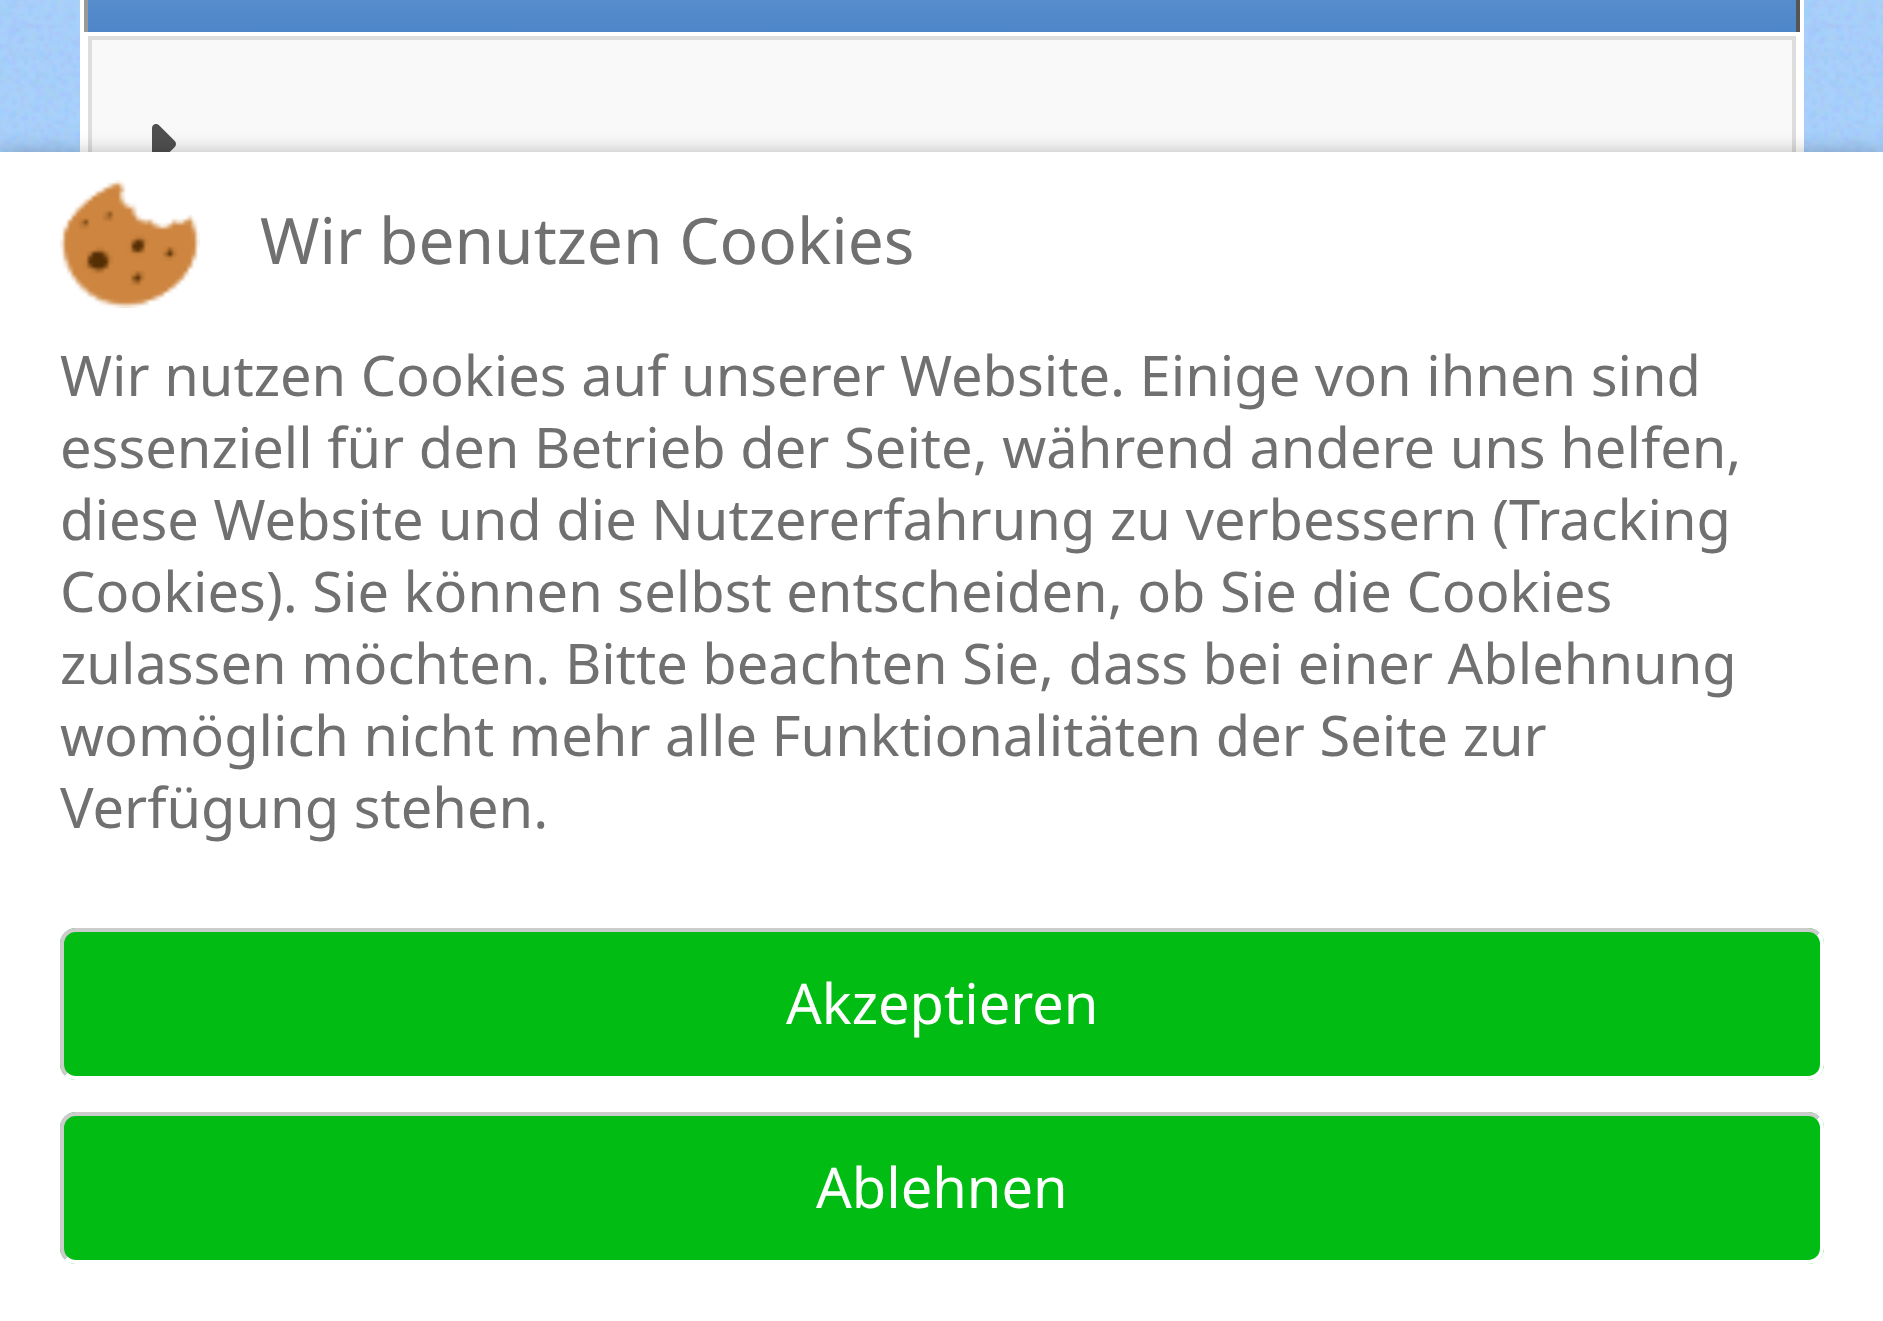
<?xml version="1.0" encoding="UTF-8"?>
<svg xmlns="http://www.w3.org/2000/svg" xmlns:xlink="http://www.w3.org/1999/xlink" width="1883" height="1321">
  <defs>
    <linearGradient id="g1" gradientUnits="userSpaceOnUse" x1="942" y1="-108" x2="942" y2="32"><stop offset="0" stop-color="#4d86c9" /><stop offset="0.33" stop-color="#6899d2" /><stop offset="1" stop-color="#4d86c9" /></linearGradient>
  </defs>
  <rect width="100%" height="100%" fill="#a2cdfd" />
  <image x="0" y="0" width="1883" height="152" xlink:href="image1.png" />
  <rect x="82" y="-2" width="1720" height="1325" fill="none" stroke="#ffffff" stroke-width="4" />
  <rect x="88" width="1708" height="32" fill="url(#g1)" />
  <rect x="1796" width="4" height="32" fill="#555555" />
  <rect x="84" width="4" height="32" fill="#999999" />
  <rect x="86" y="34" width="1712" height="884" fill="none" stroke="#ffffff" stroke-width="4" />
  <rect x="92" y="40" width="1700" height="112" fill="#f9f9f9" />
  <rect x="90" y="38" width="1704" height="876" fill="none" stroke="#dddddd" stroke-width="4" />
  <image x="152" y="124" width="24" height="28" xlink:href="image2.png" />
  <rect y="152" width="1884" height="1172" fill="#000000" fill-opacity="0.25" filter="blur(10px)" />
  <rect y="152" width="1883" height="1169" fill="#ffffff" />
  <image x="60" y="180" width="140" height="128" xlink:href="image3.png" />
  <rect x="60" y="928" width="1764" height="152" rx="16" fill="#00bc13" />
  <path d="M 1818 934 c 2.5 2.5 4 6.5 4 10 v 120 c 0 3.5 -1.5 7.5 -4 10 c -2.5 2.5 -6.5 4 -10 4 h -1732 c -3.5 0 -7.5 -1.5 -10 -4" fill="none" stroke="#ffffff" stroke-width="4" />
  <path d="M 66 1074 c -2.5 -2.5 -4 -6.5 -4 -10 v -120 c 0 -3.5 1.5 -7.5 4 -10 c 2.5 -2.5 6.5 -4 10 -4 h 1732 c 3.5 0 7.5 1.5 10 4" fill="none" stroke="#cccccc" stroke-width="4" />
  <rect x="60" y="1112" width="1764" height="152" rx="16" fill="#00bc13" />
  <path d="M 1818 1118 c 2.5 2.5 4 6.5 4 10 v 120 c 0 3.5 -1.5 7.5 -4 10 c -2.5 2.5 -6.5 4 -10 4 h -1732 c -3.5 0 -7.5 -1.5 -10 -4" fill="none" stroke="#ffffff" stroke-width="4" />
  <path d="M 66 1258 c -2.5 -2.5 -4 -6.5 -4 -10 v -120 c 0 -3.5 1.5 -7.5 4 -10 c 2.5 -2.5 6.5 -4 10 -4 h 1732 c 3.5 0 7.5 1.5 10 4" fill="none" stroke="#cccccc" stroke-width="4" />
  <text x="260" y="264" style="font-family: Noto Sans; font-size: 64px; fill: #707070">Wir benutzen Cookies</text>
  <text x="60" y="396" style="font-family: Noto Sans; font-size: 56px; fill: #707070">Wir nutzen Cookies auf unserer Website. Einige von ihnen sind</text>
  <text x="60" y="468" style="font-family: Noto Sans; font-size: 56px; fill: #707070">essenziell für den Betrieb der Seite, während andere uns helfen,</text>
  <text x="60" y="540" style="font-family: Noto Sans; font-size: 56px; fill: #707070">diese Website und die Nutzererfahrung zu verbessern (Tracking</text>
  <text x="60" y="612" style="font-family: Noto Sans; font-size: 56px; fill: #707070">Cookies). Sie können selbst entscheiden, ob Sie die Cookies</text>
  <text x="60" y="684" style="font-family: Noto Sans; font-size: 56px; fill: #707070">zulassen möchten. Bitte beachten Sie, dass bei einer Ablehnung</text>
  <text x="60" y="756" style="font-family: Noto Sans; font-size: 56px; fill: #707070">womöglich nicht mehr alle Funktionalitäten der Seite zur</text>
  <text x="60" y="828" style="font-family: Noto Sans; font-size: 56px; fill: #707070">Verfügung stehen.</text>
  <text x="786" y="1024" style="font-family: Noto Sans; font-size: 56px; fill: #ffffff">Akzeptieren</text>
  <text x="816" y="1208" style="font-family: Noto Sans; font-size: 56px; fill: #ffffff">Ablehnen</text>
</svg>
